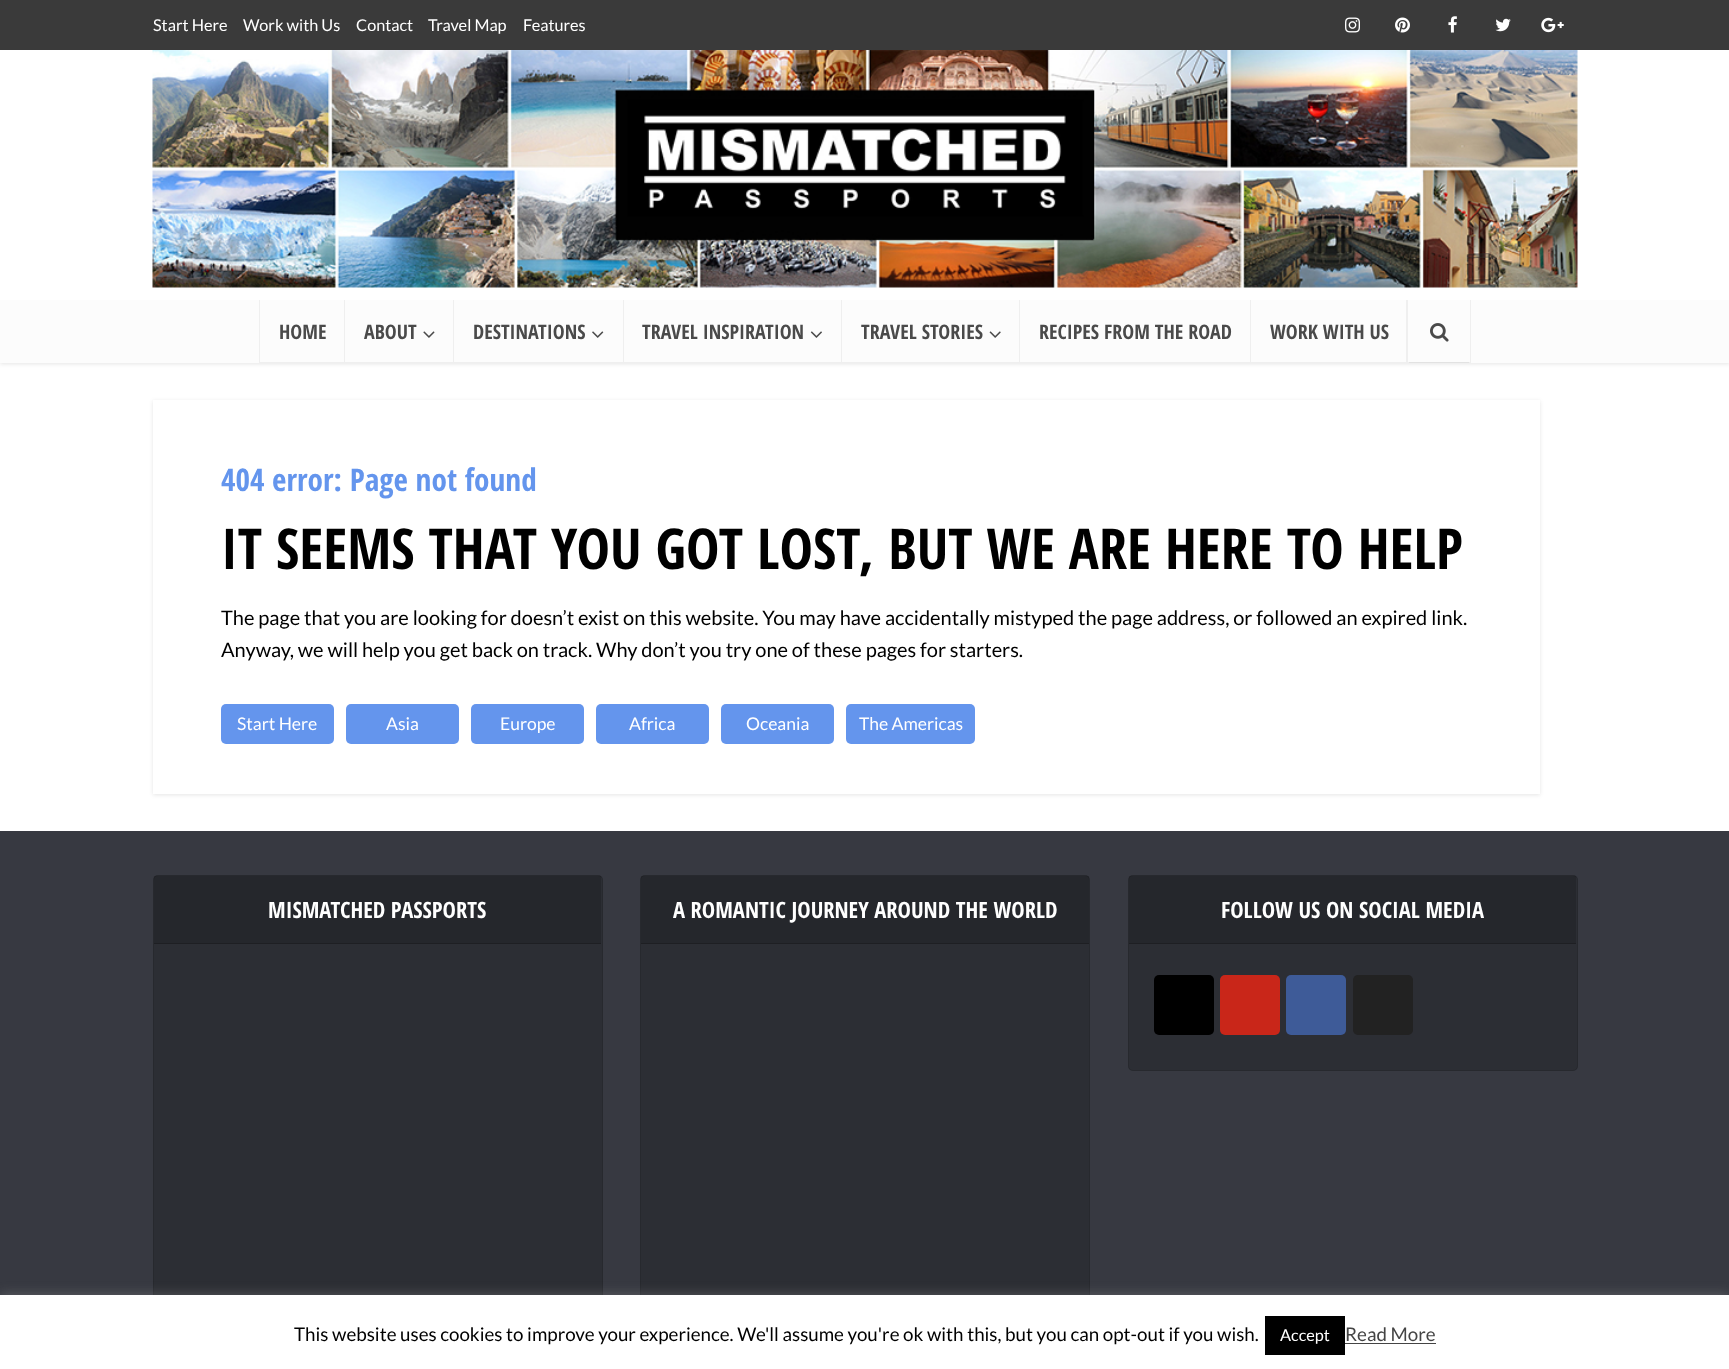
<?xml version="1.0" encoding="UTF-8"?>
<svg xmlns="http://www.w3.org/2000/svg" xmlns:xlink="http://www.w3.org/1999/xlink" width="1729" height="1369">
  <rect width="100%" height="100%" fill="#ffffff" />
  <rect y="1" width="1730" height="363" fill="#000000" fill-opacity="0.1" filter="blur(2px)" />
  <rect y="50" width="1729" height="250" fill="#ffffff" />
  <rect width="1729" height="50" fill="#3a3a3a" />
  <image x="1345" y="17" width="15" height="16" xlink:href="image1.png" />
  <image x="1395" y="17" width="15" height="16" xlink:href="image2.png" />
  <image x="1448" y="16" width="9" height="17" xlink:href="image3.png" />
  <image x="1495" y="18" width="16" height="14" xlink:href="image4.png" />
  <image x="1541" y="17" width="23" height="16" xlink:href="image5.png" />
  <image x="152" y="50" width="1426" height="238" xlink:href="image6.png" />
  <rect y="300" width="1729" height="63" fill="#fcfcfc" />
  <path d="M 259 300 v 63 h 85 v -1 h -84 v -62 z" fill="#efefef" />
  <path d="M 344 300 v 63 h 109 v -1 h -108 v -62 z" fill="#efefef" />
  <image x="423" y="331" width="12" height="7" xlink:href="image7.png" />
  <path d="M 453 300 v 63 h 170 v -1 h -169 v -62 z" fill="#efefef" />
  <image x="592" y="331" width="12" height="7" xlink:href="image8.png" />
  <path d="M 623 300 v 63 h 218 v -1 h -217 v -62 z" fill="#efefef" />
  <image x="810" y="331" width="12" height="7" xlink:href="image9.png" />
  <path d="M 841 300 v 63 h 178 v -1 h -177 v -62 z" fill="#efefef" />
  <image x="989" y="331" width="12" height="7" xlink:href="image10.png" />
  <path d="M 1019 300 v 63 h 231 v -1 h -230 v -62 z" fill="#efefef" />
  <path d="M 1250 300 v 63 h 156 v -1 h -155 v -62 z" fill="#efefef" />
  <path d="M 1409 362 v 1 h 62 v -63 h -1 v 62 z" fill="#efefef" />
  <path d="M 1406 300 v 63 h 63 v -1 h -61 v -62 z" fill="#000000" fill-opacity="0.05" />
  <image x="1430" y="323" width="19" height="19" xlink:href="image11.png" />
  <rect x="153" y="401" width="1387" height="394" fill="#000000" fill-opacity="0.1" filter="blur(2px)" />
  <rect x="153" y="400" width="1387" height="394" fill="#ffffff" />
  <rect x="221" y="704" width="113" height="40" rx="5" fill="#6495ed" />
  <rect x="346" y="704" width="113" height="40" rx="5" fill="#6495ed" />
  <rect x="471" y="704" width="113" height="40" rx="5" fill="#6495ed" />
  <rect x="596" y="704" width="113" height="40" rx="5" fill="#6495ed" />
  <rect x="721" y="704" width="113" height="40" rx="5" fill="#6495ed" />
  <rect x="846" y="704" width="129" height="40" rx="5" fill="#6495ed" />
  <rect y="831" width="1729" height="464" fill="#373941" />
  <rect x="153" y="875" width="450" height="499" rx="5" fill="#2c2e34" />
  <rect x="153.5" y="875.5" width="449" height="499" rx="4.5" fill="none" stroke="#000000" stroke-opacity="0.1" />
  <rect x="154" y="876" width="447" height="67" fill="#000000" fill-opacity="0.15" />
  <rect x="154" y="943" width="447" height="1" fill="#1e1f23" />
  <rect x="640" y="875" width="450" height="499" rx="5" fill="#2c2e34" />
  <rect x="640.5" y="875.5" width="449" height="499" rx="4.5" fill="none" stroke="#000000" stroke-opacity="0.1" />
  <rect x="641" y="876" width="448" height="67" fill="#000000" fill-opacity="0.15" />
  <rect x="641" y="943" width="448" height="1" fill="#1e1f23" />
  <rect x="1128" y="875" width="450" height="196" rx="5" fill="#2c2e34" />
  <rect x="1128.5" y="875.5" width="449" height="195" rx="4.5" fill="none" stroke="#000000" stroke-opacity="0.1" />
  <rect x="1129" y="876" width="447" height="67" fill="#000000" fill-opacity="0.15" />
  <rect x="1129" y="943" width="447" height="1" fill="#1e1f23" />
  <rect x="1154" y="975" width="60" height="60" rx="5" fill="#000000" />
  <rect x="1220" y="975" width="60" height="60" rx="5" fill="#c92619" />
  <rect x="1286" y="975" width="60" height="60" rx="5" fill="#3e5b98" />
  <rect x="1353" y="975" width="60" height="60" rx="5" fill="#222222" />
  <rect y="1294" width="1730" height="75" fill="#acabab" fill-opacity="0.3" filter="blur(6px)" />
  <rect y="1295" width="1729" height="74" fill="#ffffff" />
  <rect x="1265" y="1316" width="80" height="39" fill="#000000" />
  <rect x="1345" y="1343" width="91" height="1" fill="#444444" />
  <text x="153" y="31" style="font-family: Lato; font-size: 16.25px; fill: #ffffff">Start Here</text>
  <text x="243" y="31" style="font-family: Lato; font-size: 16.25px; fill: #ffffff">Work with Us</text>
  <text x="356" y="31" style="font-family: Lato; font-size: 16.25px; fill: #ffffff">Contact</text>
  <text x="428" y="31" style="font-family: Lato; font-size: 16.25px; fill: #ffffff">Travel Map</text>
  <text x="523" y="31" style="font-family: Lato; font-size: 16.25px; fill: #ffffff">Features</text>
  <text x="279" y="339" style="font-family: Open Sans Condensed; font-size: 20px; font-weight: bold; fill: #4a4a4a">HOME</text>
  <text x="364" y="339" style="font-family: Open Sans Condensed; font-size: 20px; font-weight: bold; fill: #4a4a4a">ABOUT</text>
  <text x="473" y="339" style="font-family: Open Sans Condensed; font-size: 20px; font-weight: bold; fill: #4a4a4a">DESTINATIONS</text>
  <text x="642" y="339" style="font-family: Open Sans Condensed; font-size: 20px; font-weight: bold; fill: #4a4a4a">TRAVEL INSPIRATION</text>
  <text x="861" y="339" style="font-family: Open Sans Condensed; font-size: 20px; font-weight: bold; fill: #4a4a4a">TRAVEL STORIES</text>
  <text x="1039" y="339" style="font-family: Open Sans Condensed; font-size: 20px; font-weight: bold; fill: #4a4a4a">RECIPES FROM THE ROAD</text>
  <text x="1270" y="339" style="font-family: Open Sans Condensed; font-size: 20px; font-weight: bold; fill: #4a4a4a">WORK WITH US</text>
  <text x="221" y="491" style="font-family: Open Sans Condensed; font-size: 31.25px; font-weight: bold; fill: #6495ed">404 error: Page not found</text>
  <text x="221" y="569" style="font-family: Open Sans Condensed; font-size: 56.25px; font-weight: bold; fill: #000000">IT SEEMS THAT YOU GOT LOST, BUT WE ARE HERE TO HELP</text>
  <text x="221" y="625" style="font-family: Lato; font-size: 20px; fill: #000000">The page that you are looking for doesn’t exist on this website. You may have accidentally mistyped the page address, or followed an expired link.</text>
  <text x="221" y="657" style="font-family: Lato; font-size: 20px; fill: #000000">Anyway, we will help you get back on track. Why don’t you try one of these pages for starters.</text>
  <text x="237" y="730" style="font-family: Lato; font-size: 17.5px; fill: #ffffff">Start Here</text>
  <text x="386" y="730" style="font-family: Lato; font-size: 17.5px; fill: #ffffff">Asia</text>
  <text x="500" y="730" style="font-family: Lato; font-size: 17.5px; fill: #ffffff">Europe</text>
  <text x="629" y="730" style="font-family: Lato; font-size: 17.5px; fill: #ffffff">Africa</text>
  <text x="746" y="730" style="font-family: Lato; font-size: 17.5px; fill: #ffffff">Oceania</text>
  <text x="859" y="730" style="font-family: Lato; font-size: 17.5px; fill: #ffffff">The Americas</text>
  <text x="268" y="918" style="font-family: Open Sans Condensed; font-size: 22.5px; font-weight: bold; fill: #ffffff">MISMATCHED PASSPORTS</text>
  <text x="673" y="918" style="font-family: Open Sans Condensed; font-size: 22.5px; font-weight: bold; fill: #ffffff">A ROMANTIC JOURNEY AROUND THE WORLD</text>
  <text x="1221" y="918" style="font-family: Open Sans Condensed; font-size: 22.5px; font-weight: bold; fill: #ffffff">FOLLOW US ON SOCIAL MEDIA</text>
  <text x="294" y="1341" style="font-family: Lato; font-size: 18.75px; fill: #000000">This website uses cookies to improve your experience. We'll assume you're ok with this, but you can opt-out if you wish.</text>
  <text x="1280" y="1341" style="font-family: Lato; font-size: 16.25px; fill: #ffffff">Accept</text>
  <text x="1345" y="1341" style="font-family: Lato; font-size: 18.75px; fill: #444444">Read More</text>
</svg>
